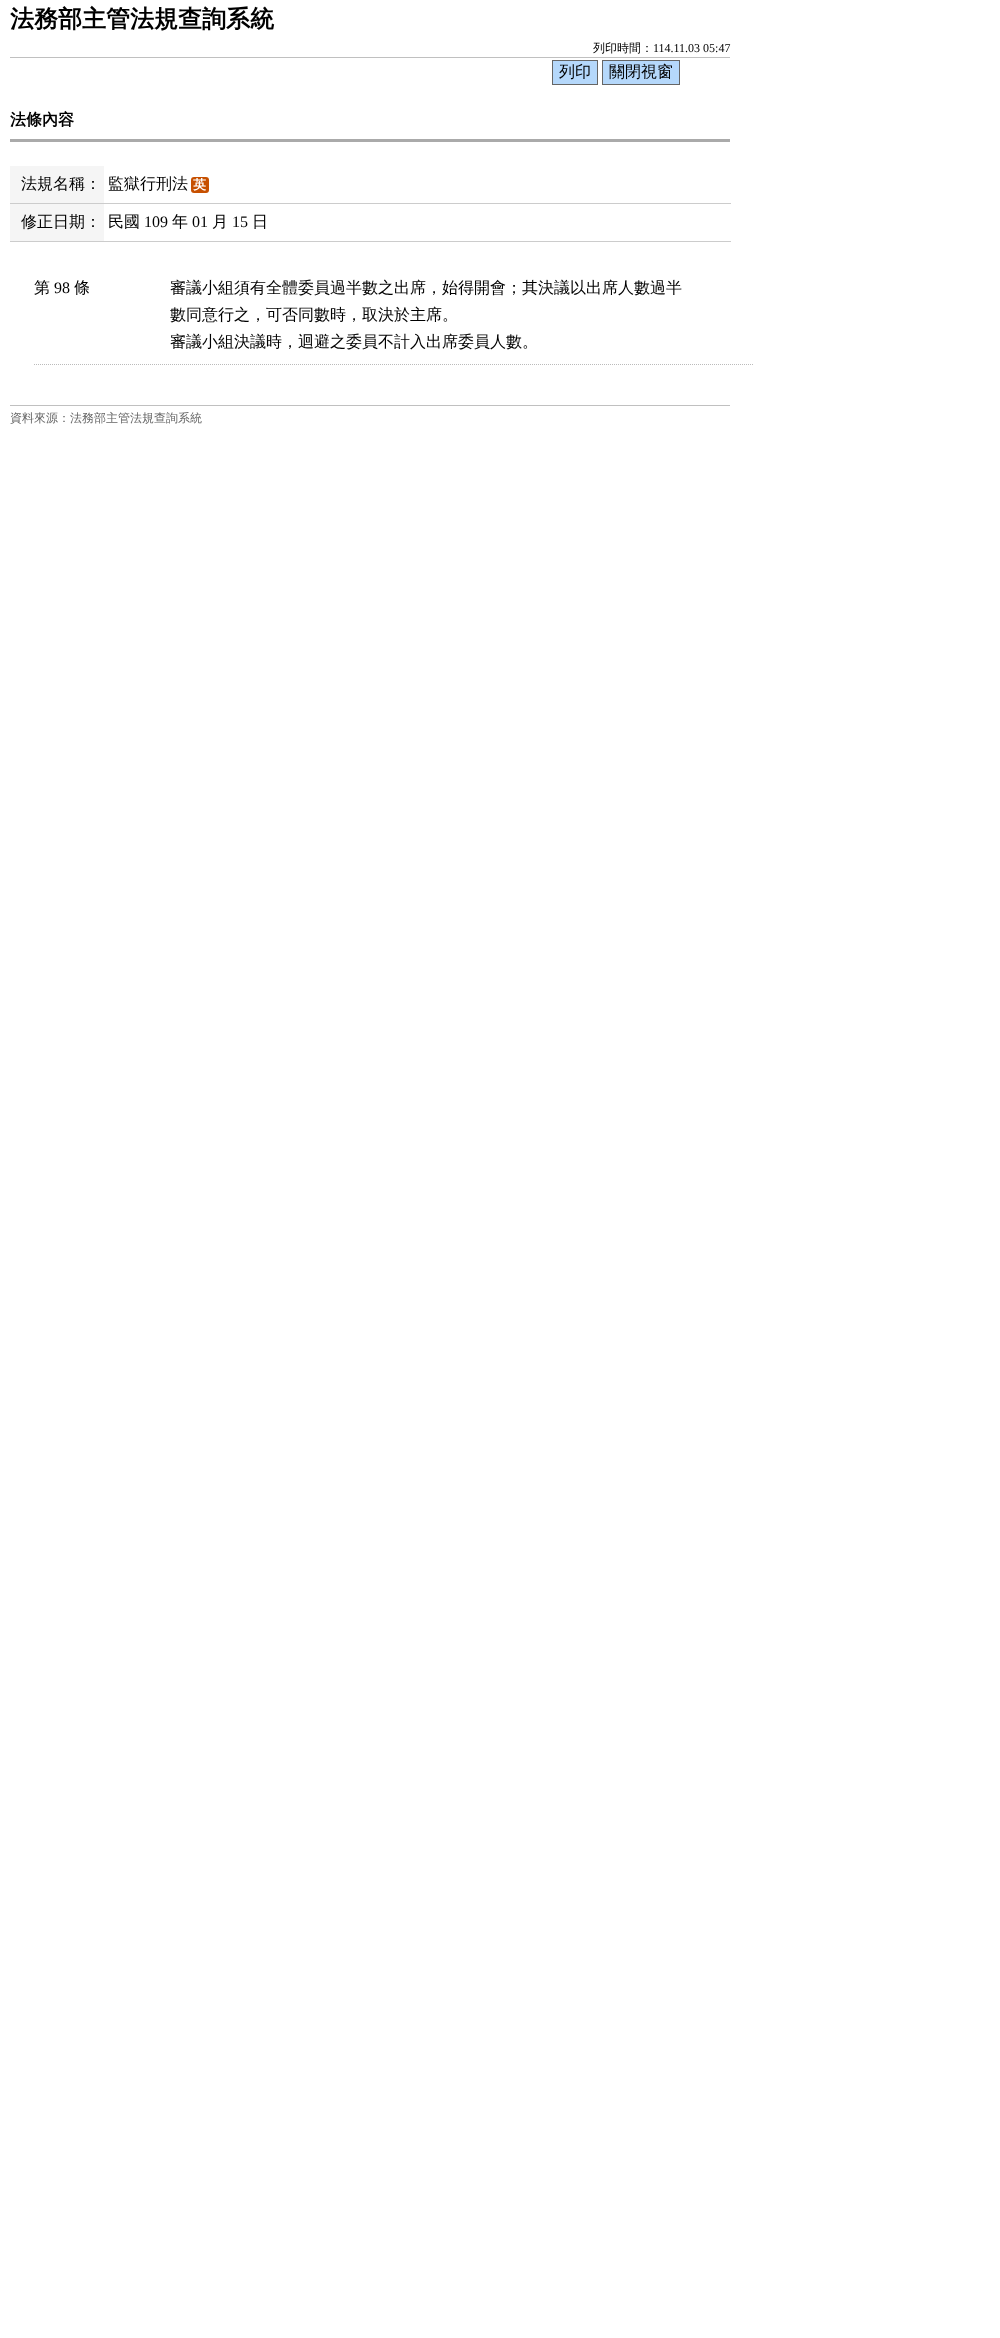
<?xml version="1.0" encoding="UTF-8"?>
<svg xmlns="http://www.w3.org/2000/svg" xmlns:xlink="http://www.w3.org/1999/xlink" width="1000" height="2338">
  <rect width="100%" height="100%" fill="#ffffff" />
  <rect x="10" y="57" width="720" height="1" fill="#c0c0c0" />
  <rect x="552.5" y="60.5" width="45" height="24" fill="#b5d8fb" stroke="#666666" />
  <rect x="602.5" y="60.5" width="77" height="24" fill="#b5d8fb" stroke="#666666" />
  <rect x="10" y="139" width="720" height="3" fill="#aaaaaa" />
  <rect x="10" y="166" width="94" height="37" fill="#f5f5f5" />
  <rect x="10" y="203" width="721" height="1" fill="#cccccc" />
  <rect x="191" y="177" width="18" height="16" rx="3" fill="#c75000" />
  <rect x="10" y="204" width="94" height="37" fill="#f5f5f5" />
  <rect x="10" y="241" width="721" height="1" fill="#cccccc" />
  <path d="M 34 364.5 h 720" fill="none" stroke="#bbbbbb" stroke-dasharray="1 1" />
  <rect x="10" y="405" width="720" height="1" fill="#c0c0c0" />
  <text x="10" y="27" style="font-family: WenQuanYi Zen Hei; font-size: 24px; font-weight: bold; fill: #000000">法務部主管法規查詢系統</text>
  <text x="593" y="52" style="font-family: WenQuanYi Zen Hei; font-size: 12px; font-weight: 500; fill: #000000">列印時間：</text>
  <text x="653" y="52" style="font-family: Liberation Serif; font-size: 12px; fill: #000000">114.11.03 05:47</text>
  <text x="559" y="77" style="font-family: WenQuanYi Zen Hei; font-size: 16px; font-weight: 500; fill: #000000">列印</text>
  <text x="609" y="77" style="font-family: WenQuanYi Zen Hei; font-size: 16px; font-weight: 500; fill: #000000">關閉視窗</text>
  <text x="10" y="125" style="font-family: WenQuanYi Zen Hei; font-size: 16px; font-weight: bold; fill: #000000">法條內容</text>
  <text x="21" y="189" style="font-family: WenQuanYi Zen Hei; font-size: 16px; font-weight: 500; fill: #000000">法規名稱：</text>
  <text x="108" y="189" style="font-family: WenQuanYi Zen Hei; font-size: 16px; font-weight: 500; fill: #000000">監獄行刑法</text>
  <text x="193" y="189" style="font-family: WenQuanYi Zen Hei; font-size: 13px; font-weight: bold; fill: #ffffff">英</text>
  <text x="21" y="227" style="font-family: WenQuanYi Zen Hei; font-size: 16px; font-weight: 500; fill: #000000">修正日期：</text>
  <text x="108" y="227" style="font-family: WenQuanYi Zen Hei; font-size: 16px; font-weight: 500; fill: #000000">民國</text>
  <text x="144" y="227" style="font-family: Liberation Serif; font-size: 16px; fill: #000000">109</text>
  <text x="172" y="227" style="font-family: WenQuanYi Zen Hei; font-size: 16px; font-weight: 500; fill: #000000">年</text>
  <text x="192" y="227" style="font-family: Liberation Serif; font-size: 16px; fill: #000000">01</text>
  <text x="212" y="227" style="font-family: WenQuanYi Zen Hei; font-size: 16px; font-weight: 500; fill: #000000">月</text>
  <text x="232" y="227" style="font-family: Liberation Serif; font-size: 16px; fill: #000000">15</text>
  <text x="252" y="227" style="font-family: WenQuanYi Zen Hei; font-size: 16px; font-weight: 500; fill: #000000">日</text>
  <text x="34" y="293" style="font-family: WenQuanYi Zen Hei; font-size: 16px; font-weight: 500; fill: #000000">第</text>
  <text x="54" y="293" style="font-family: Liberation Serif; font-size: 16px; fill: #000000">98</text>
  <text x="74" y="293" style="font-family: WenQuanYi Zen Hei; font-size: 16px; font-weight: 500; fill: #000000">條</text>
  <text x="170" y="293" style="font-family: WenQuanYi Zen Hei; font-size: 16px; font-weight: 500; fill: #000000">審議小組須有全體委員過半數之出席，始得開會；其決議以出席人數過半</text>
  <text x="170" y="320" style="font-family: WenQuanYi Zen Hei; font-size: 16px; font-weight: 500; fill: #000000">數同意行之，可否同數時，取決於主席。</text>
  <text x="170" y="347" style="font-family: WenQuanYi Zen Hei; font-size: 16px; font-weight: 500; fill: #000000">審議小組決議時，迴避之委員不計入出席委員人數。</text>
  <text x="10" y="422" style="font-family: WenQuanYi Zen Hei; font-size: 12px; font-weight: 500; fill: #666666">資料來源：法務部主管法規查詢系統</text>
</svg>
